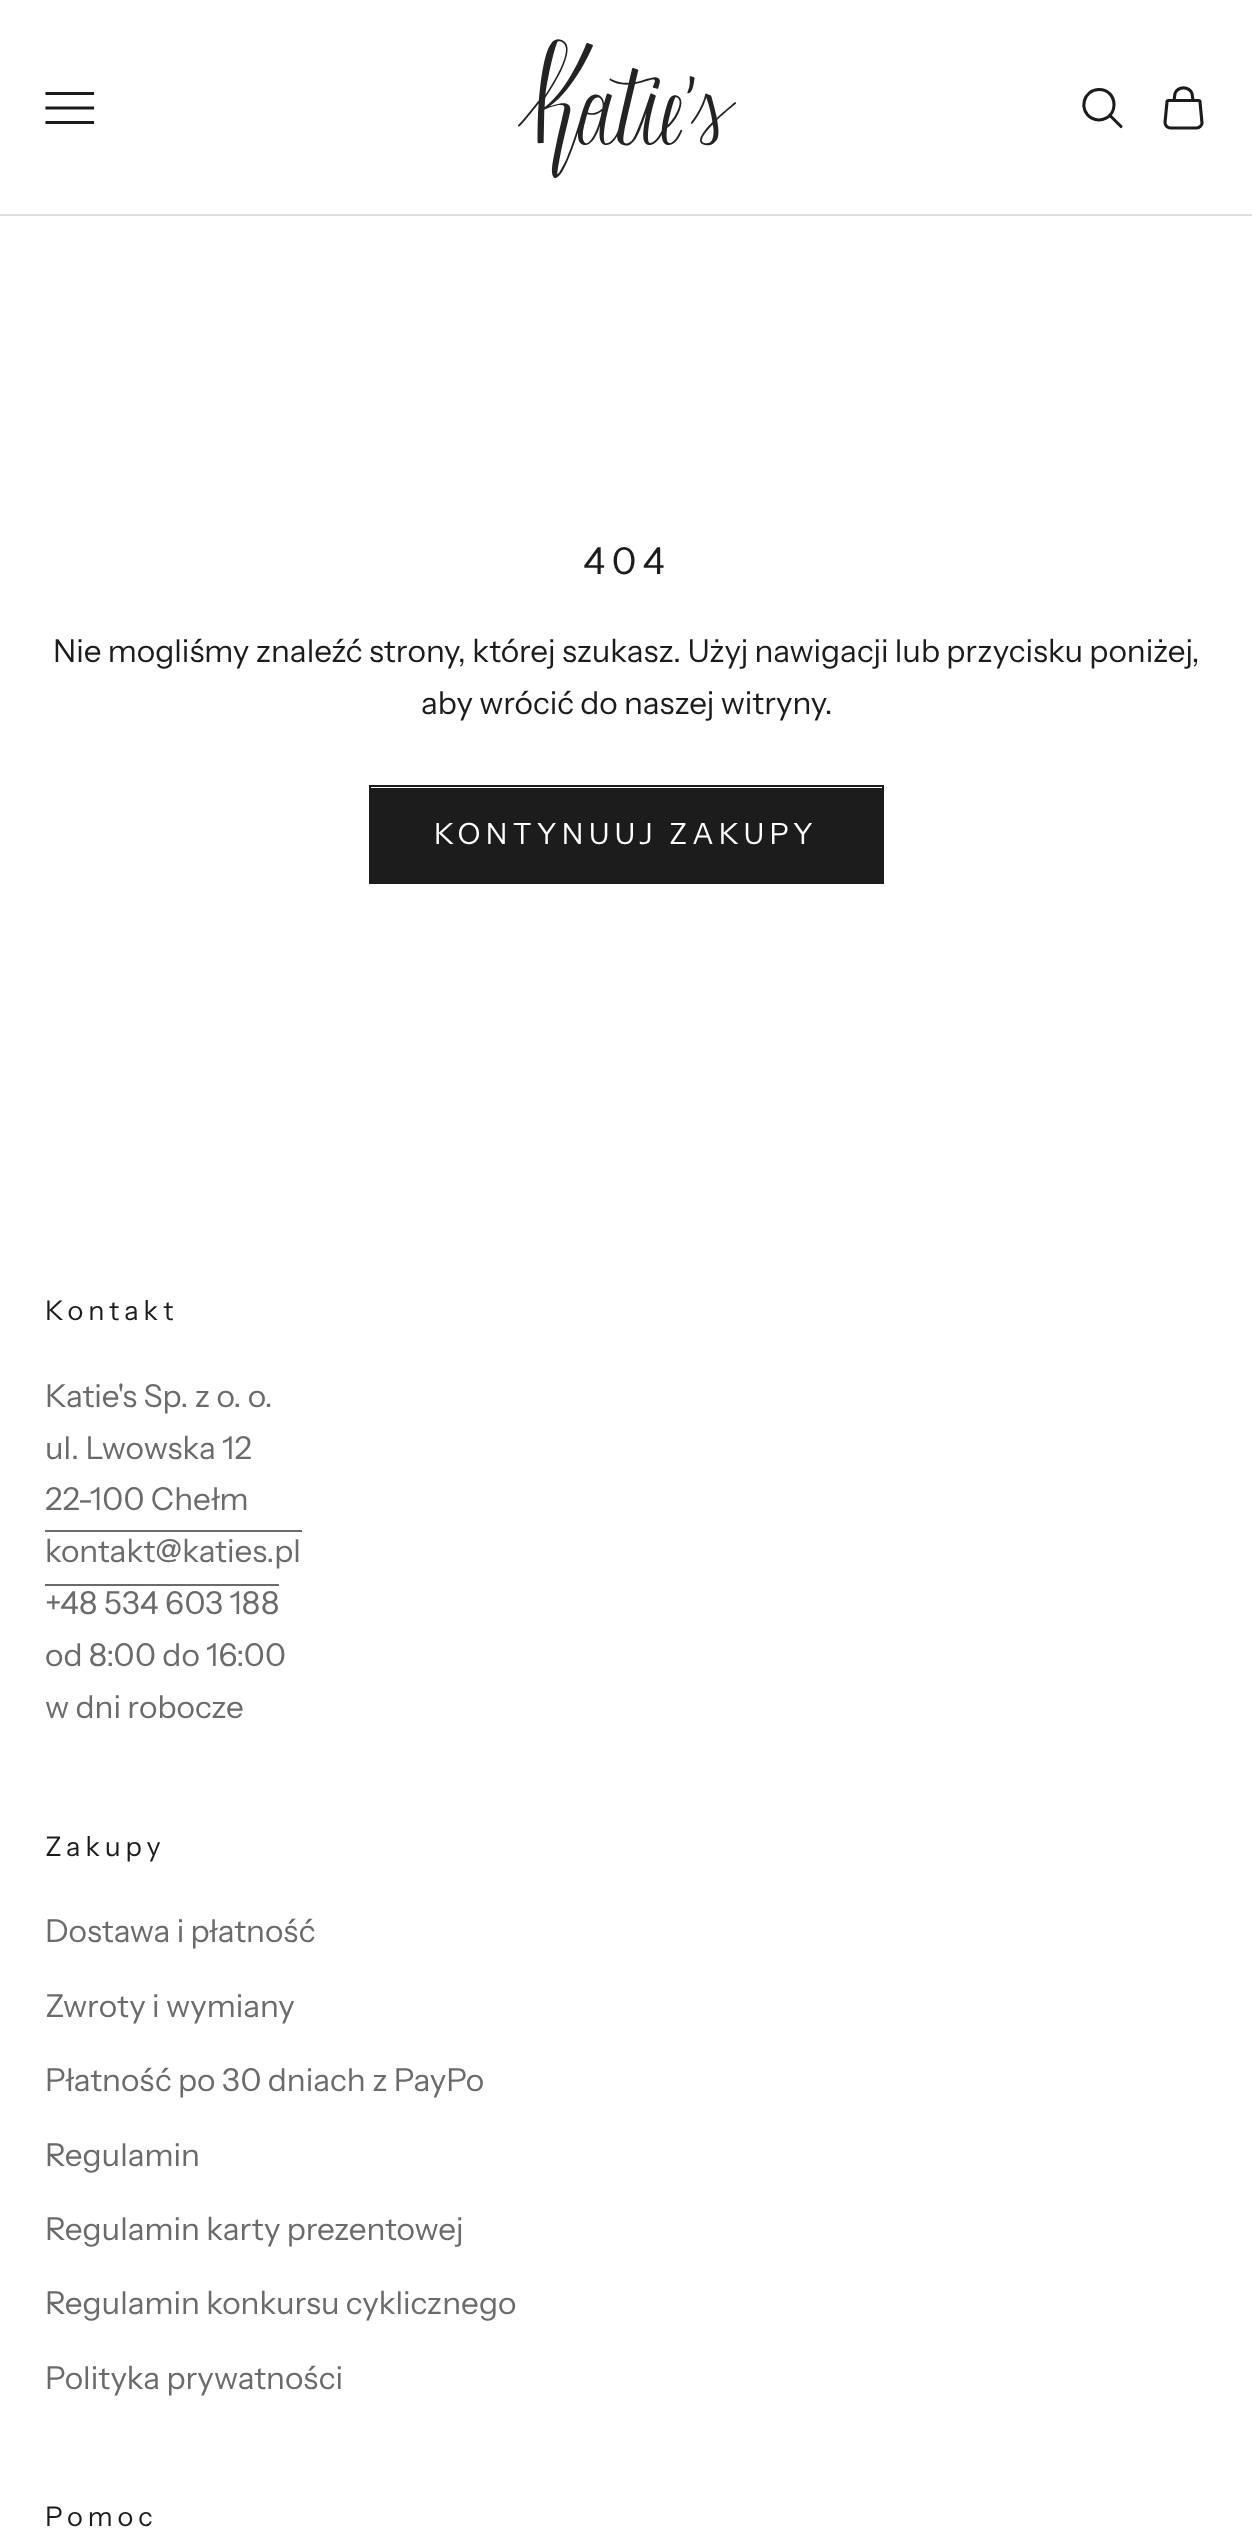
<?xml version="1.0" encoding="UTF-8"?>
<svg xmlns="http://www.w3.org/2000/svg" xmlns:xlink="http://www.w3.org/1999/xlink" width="1252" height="2531">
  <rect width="100%" height="100%" fill="#ffffff" />
  <rect y="214" width="1252" height="2" fill="#dddddd" />
  <path d="M 47 122.5 h 45.5 m -45.5 -14.5 h 45.5 m -45.5 -14.5 h 45.5" fill="none" stroke="#1c1c1c" stroke-width="3.1" stroke-linecap="square" />
  <image x="518" y="39" width="219" height="139" xlink:href="image1.png" />
  <path d="M 1099 89.5 c -15.5 0 -21 20.5 -7.5 28.5 c 2 1 5 2 7.5 2 c 20.5 -1 19.5 -30.5 0 -30.5 z" fill="none" stroke="#1c1c1c" stroke-width="3.1" />
  <path d="M 1110.5 116 l 10.5 10.5" fill="none" stroke="#1c1c1c" stroke-width="3.1" stroke-linecap="round" />
  <path d="M 1168.5 100.5 c -1 0 -1.5 0.5 -1.5 1.5 l -2 20.5 c 0 3 2.5 5.5 5.5 5.5 h 26 c 3 0 5.5 -2.5 5.5 -5 l -2 -21 c 0 -1 -0.5 -1.5 -1.5 -1.5 z m 5.5 0 l 1 -7 c 3 -7.5 14 -7.5 17 0 l 1 7" fill="none" stroke="#1c1c1c" stroke-width="3.1" stroke-linecap="round" stroke-linejoin="round" />
  <rect x="371" y="788" width="511" height="94" fill="#1c1c1c" />
  <rect x="370" y="786" width="513" height="97" fill="none" stroke="#1c1c1c" stroke-width="2" />
  <rect x="45" y="1530" width="257" height="2" fill="#6b6b6b" />
  <rect x="45" y="1584" width="234" height="2" fill="#6b6b6b" />
  <text x="583" y="574" style="font-family: Instrument Sans; font-size: 37px; letter-spacing: 6.5px; fill: #1c1c1c">404</text>
  <text x="53" y="662" style="font-family: Instrument Sans; font-size: 31.5px; fill: #1c1c1c">Nie mogliśmy znaleźć strony, której szukasz. Użyj nawigacji lub przycisku poniżej,</text>
  <text x="421" y="714" style="font-family: Instrument Sans; font-size: 31.5px; fill: #1c1c1c">aby wrócić do naszej witryny.</text>
  <text x="434" y="844" style="font-family: Instrument Sans; font-size: 29.25px; letter-spacing: 5.25px; fill: #ffffff">KONTYNUUJ ZAKUPY</text>
  <text x="45" y="1320" style="font-family: Instrument Sans; font-size: 27px; letter-spacing: 5px; fill: #1c1c1c">Kontakt</text>
  <text x="45" y="1407" style="font-family: Instrument Sans; font-size: 31.5px; fill: #6b6b6b">Katie's Sp. z o. o.</text>
  <text x="45" y="1459" style="font-family: Instrument Sans; font-size: 31.5px; fill: #6b6b6b">ul. Lwowska 12</text>
  <text x="45" y="1510" style="font-family: Instrument Sans; font-size: 31.5px; fill: #6b6b6b">22-100 Chełm</text>
  <text x="45" y="1562" style="font-family: Instrument Sans; font-size: 31.5px; fill: #6b6b6b">kontakt@katies.pl</text>
  <text x="45" y="1614" style="font-family: Instrument Sans; font-size: 31.5px; fill: #6b6b6b">+48 534 603 188</text>
  <text x="45" y="1666" style="font-family: Instrument Sans; font-size: 31.5px; fill: #6b6b6b">od 8:00 do 16:00</text>
  <text x="45" y="1718" style="font-family: Instrument Sans; font-size: 31.5px; fill: #6b6b6b">w dni robocze</text>
  <text x="45" y="1856" style="font-family: Instrument Sans; font-size: 27px; letter-spacing: 5px; fill: #1c1c1c">Zakupy</text>
  <text x="45" y="1942" style="font-family: Instrument Sans; font-size: 31.5px; fill: #6b6b6b">Dostawa i płatność</text>
  <text x="45" y="2017" style="font-family: Instrument Sans; font-size: 31.5px; fill: #6b6b6b">Zwroty i wymiany</text>
  <text x="45" y="2091" style="font-family: Instrument Sans; font-size: 31.5px; fill: #6b6b6b">Płatność po 30 dniach z PayPo</text>
  <text x="45" y="2166" style="font-family: Instrument Sans; font-size: 31.5px; fill: #6b6b6b">Regulamin</text>
  <text x="45" y="2240" style="font-family: Instrument Sans; font-size: 31.5px; fill: #6b6b6b">Regulamin karty prezentowej</text>
  <text x="45" y="2314" style="font-family: Instrument Sans; font-size: 31.5px; fill: #6b6b6b">Regulamin konkursu cyklicznego</text>
  <text x="45" y="2389" style="font-family: Instrument Sans; font-size: 31.5px; fill: #6b6b6b">Polityka prywatności</text>
  <text x="45" y="2526" style="font-family: Instrument Sans; font-size: 27px; letter-spacing: 5px; fill: #1c1c1c">Pomoc</text>
</svg>
